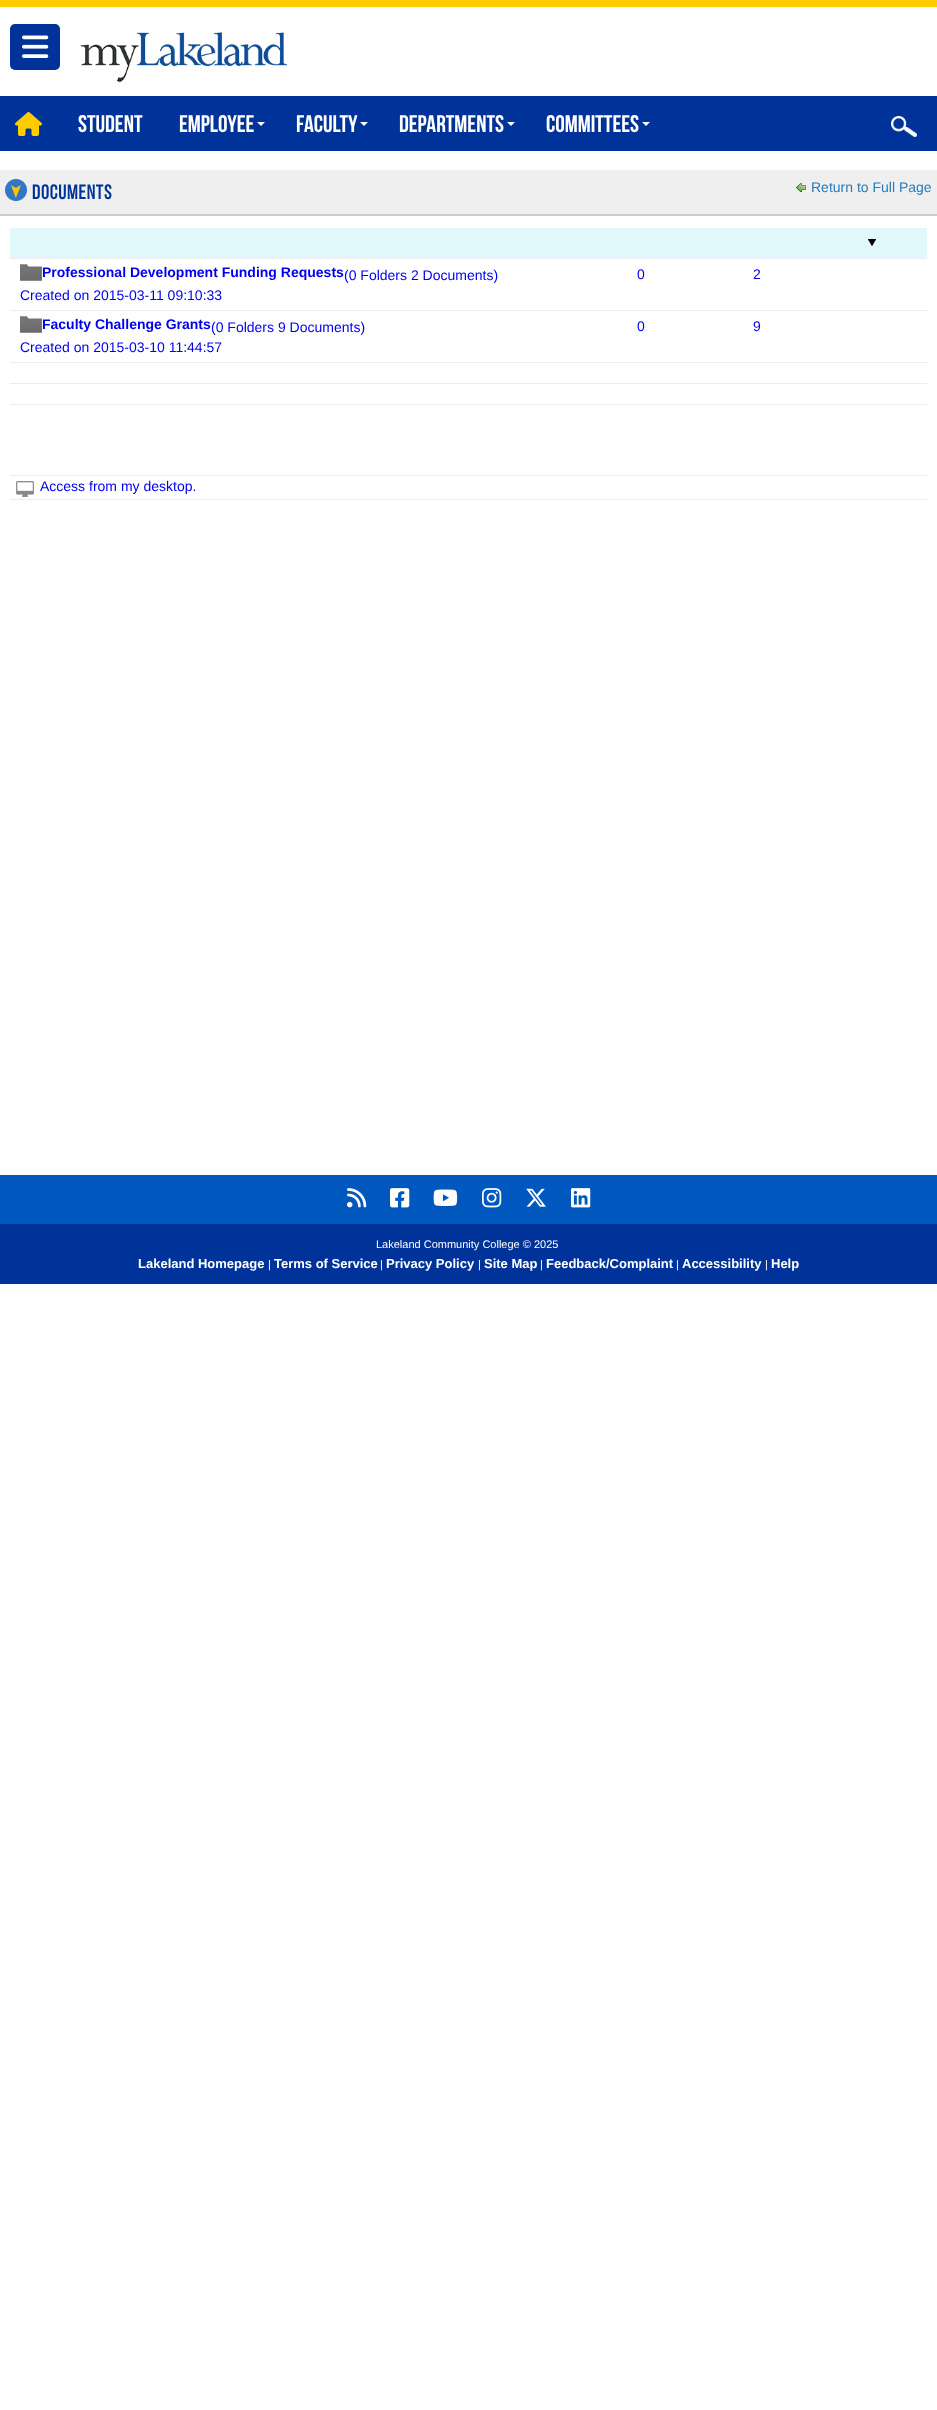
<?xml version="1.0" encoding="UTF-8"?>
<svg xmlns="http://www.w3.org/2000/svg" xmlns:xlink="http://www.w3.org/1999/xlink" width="937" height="2410">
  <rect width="100%" height="100%" fill="#ffffff" />
  <rect width="937" height="7" fill="#ffcc01" />
  <rect x="10" y="24" width="50" height="46" rx="5" fill="#003399" />
  <image x="22" y="35" width="27" height="23" xlink:href="image1.png" />
  <image x="80" y="32" width="207" height="51" xlink:href="image2.png" />
  <rect y="96" width="937" height="55" fill="#003399" />
  <image x="15" y="112" width="27" height="24" xlink:href="image3.png" />
  <path d="M 257 122 h 8 l -4 4 z" fill="#ffffff" />
  <path d="M 360 122 h 8 l -4 4 z" fill="#ffffff" />
  <path d="M 507 122 h 8 l -4 4 z" fill="#ffffff" />
  <path d="M 642 122 h 8 l -4 4 z" fill="#ffffff" />
  <image x="891" y="116" width="26" height="21" xlink:href="image4.png" />
  <rect y="170" width="937" height="44" fill="#efefef" />
  <rect y="214" width="937" height="2" fill="#cccccc" />
  <image x="5" y="179" width="22" height="22" xlink:href="image5.png" />
  <image x="796" y="183" width="10" height="10" xlink:href="image6.png" />
  <rect x="10" y="228" width="917" height="30" fill="#e0f8fb" />
  <image x="868" y="239" width="8" height="7" xlink:href="image7.png" />
  <image x="20" y="264" width="22" height="17" xlink:href="image8.png" />
  <rect x="10" y="258" width="918" height="1" fill="#ededed" />
  <image x="20" y="316" width="22" height="17" xlink:href="image8.png" />
  <rect x="10" y="310" width="918" height="1" fill="#ededed" />
  <rect x="10" y="362" width="918" height="1" fill="#ededed" />
  <rect x="10" y="383" width="917" height="1" fill="#ededed" />
  <rect x="10" y="404" width="917" height="1" fill="#ededed" />
  <image x="16" y="481" width="18" height="16" xlink:href="image9.png" />
  <rect x="10" y="475" width="917" height="1" fill="#ededed" />
  <rect x="10" y="499" width="917" height="1" fill="#ededed" />
  <rect y="1175" width="937" height="49" fill="#0058be" />
  <image x="347" y="1188" width="20" height="20" xlink:href="image10.png" />
  <image x="390" y="1188" width="20" height="20" xlink:href="image11.png" />
  <image x="433" y="1189" width="25" height="17" xlink:href="image12.png" />
  <image x="482" y="1188" width="20" height="20" xlink:href="image13.png" />
  <image x="526" y="1188" width="20" height="19" xlink:href="image14.png" />
  <image x="571" y="1188" width="20" height="20" xlink:href="image15.png" />
  <rect y="1224" width="937" height="60" fill="#003399" />
  <text x="78" y="132" style="font-family: 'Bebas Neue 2'; font-size: 24px; font-weight: bold; fill: #ffffff">Student</text>
  <text x="179" y="132" style="font-family: 'Bebas Neue 2'; font-size: 24px; font-weight: bold; fill: #ffffff">Employee</text>
  <text x="296" y="132" style="font-family: 'Bebas Neue 2'; font-size: 24px; font-weight: bold; fill: #ffffff">Faculty</text>
  <text x="399" y="132" style="font-family: 'Bebas Neue 2'; font-size: 24px; font-weight: bold; fill: #ffffff">Departments</text>
  <text x="546" y="132" style="font-family: 'Bebas Neue 2'; font-size: 24px; font-weight: bold; fill: #ffffff">Committees</text>
  <text x="32" y="199" style="font-family: Bebas Neue; font-size: 20px; font-weight: bold; letter-spacing: 1px; fill: #003399">Documents</text>
  <text x="811" y="192" style="font-family: Liberation Sans; font-size: 14px; fill: #267bbd">Return to Full Page</text>
  <text x="42" y="277" style="font-family: Liberation Sans; font-size: 14px; font-weight: bold; fill: #0000ee">Professional Development Funding Requests</text>
  <text x="344" y="280" style="font-family: Liberation Sans; font-size: 14px; fill: #0000ee">(0 Folders 2 Documents)</text>
  <text x="20" y="300" style="font-family: Liberation Sans; font-size: 14px; fill: #0000ee">Created on 2015-03-11 09:10:33</text>
  <text x="637" y="279" style="font-family: Liberation Sans; font-size: 14px; fill: #0000ee">0</text>
  <text x="753" y="279" style="font-family: Liberation Sans; font-size: 14px; fill: #0000ee">2</text>
  <text x="42" y="329" style="font-family: Liberation Sans; font-size: 14px; font-weight: bold; fill: #0000ee">Faculty Challenge Grants</text>
  <text x="211" y="332" style="font-family: Liberation Sans; font-size: 14px; fill: #0000ee">(0 Folders 9 Documents)</text>
  <text x="20" y="352" style="font-family: Liberation Sans; font-size: 14px; fill: #0000ee">Created on 2015-03-10 11:44:57</text>
  <text x="637" y="331" style="font-family: Liberation Sans; font-size: 14px; fill: #0000ee">0</text>
  <text x="753" y="331" style="font-family: Liberation Sans; font-size: 14px; fill: #0000ee">9</text>
  <text x="40" y="491" style="font-family: Liberation Sans; font-size: 14px; fill: #0000ee">Access from my desktop.</text>
  <text x="376" y="1248" style="font-family: Liberation Sans; font-size: 11px; fill: #ffffff">Lakeland Community College © 2025</text>
  <text x="138" y="1268" style="font-family: Liberation Sans; font-size: 13px; font-weight: bold; fill: #ffffff">Lakeland Homepage</text>
  <text x="268" y="1268" style="font-family: Liberation Sans; font-size: 11px; fill: #ffffff">|</text>
  <text x="274" y="1268" style="font-family: Liberation Sans; font-size: 13px; font-weight: bold; fill: #ffffff">Terms of Service</text>
  <text x="380" y="1268" style="font-family: Liberation Sans; font-size: 11px; fill: #ffffff">|</text>
  <text x="386" y="1268" style="font-family: Liberation Sans; font-size: 13px; font-weight: bold; fill: #ffffff">Privacy Policy</text>
  <text x="478" y="1268" style="font-family: Liberation Sans; font-size: 11px; fill: #ffffff">|</text>
  <text x="484" y="1268" style="font-family: Liberation Sans; font-size: 13px; font-weight: bold; fill: #ffffff">Site Map</text>
  <text x="540" y="1268" style="font-family: Liberation Sans; font-size: 11px; fill: #ffffff">|</text>
  <text x="546" y="1268" style="font-family: Liberation Sans; font-size: 13px; font-weight: bold; fill: #ffffff">Feedback/Complaint</text>
  <text x="676" y="1268" style="font-family: Liberation Sans; font-size: 11px; fill: #ffffff">|</text>
  <text x="682" y="1268" style="font-family: Liberation Sans; font-size: 13px; font-weight: bold; fill: #ffffff">Accessibility</text>
  <text x="765" y="1268" style="font-family: Liberation Sans; font-size: 11px; fill: #ffffff">|</text>
  <text x="771" y="1268" style="font-family: Liberation Sans; font-size: 13px; font-weight: bold; fill: #ffffff">Help</text>
</svg>
